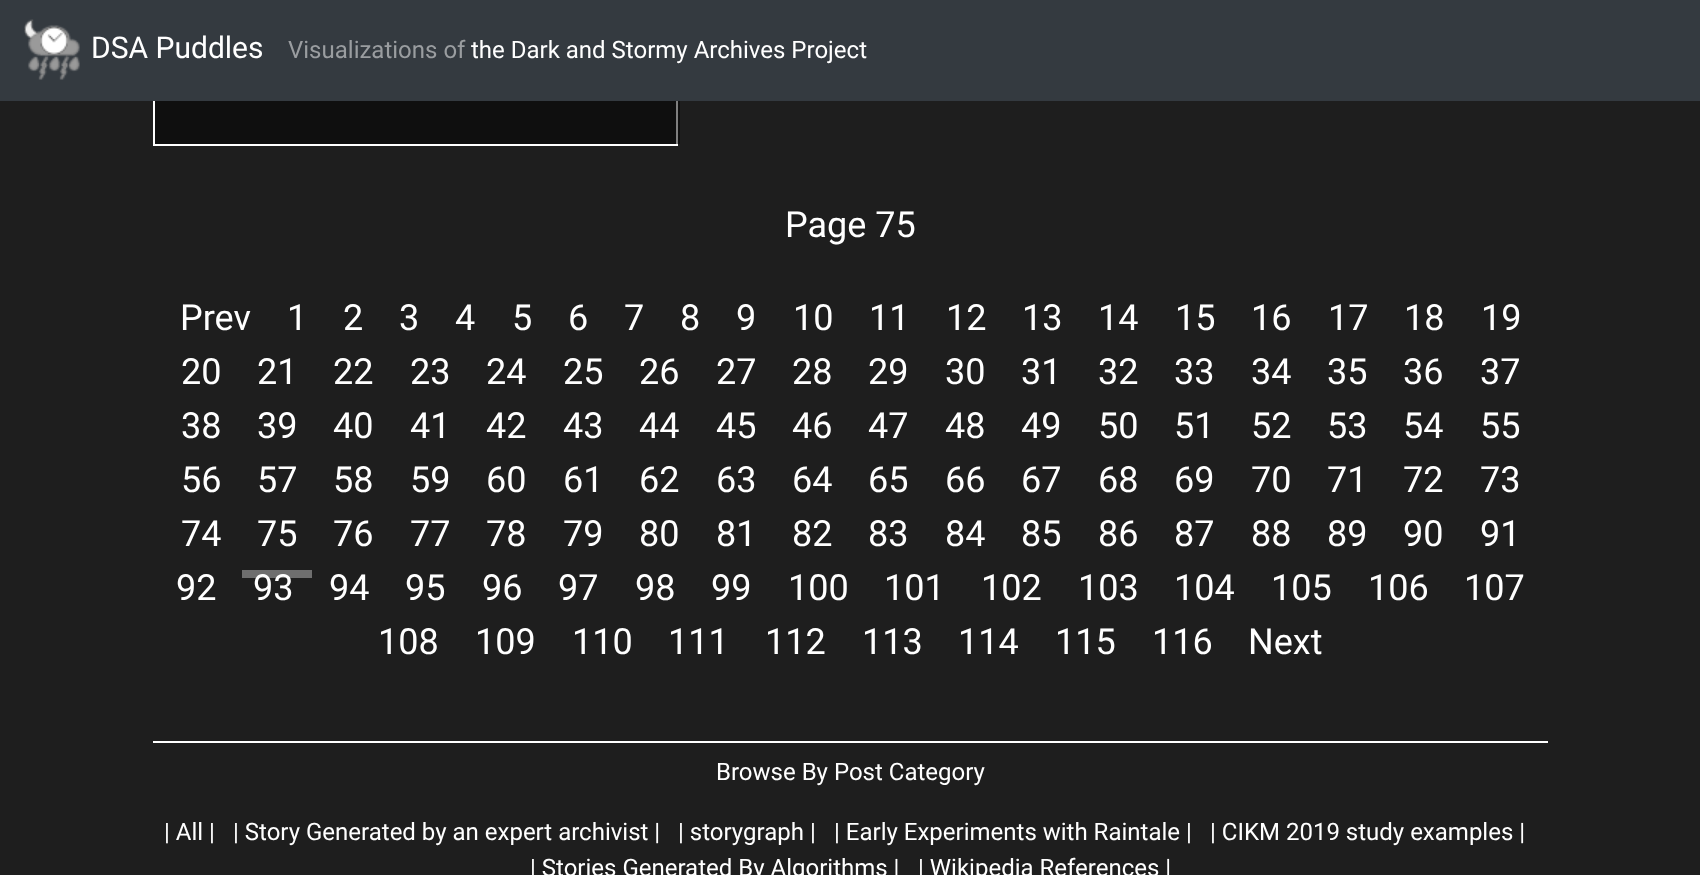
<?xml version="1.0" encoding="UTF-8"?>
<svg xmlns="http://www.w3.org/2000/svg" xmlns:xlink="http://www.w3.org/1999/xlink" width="1700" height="875">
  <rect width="100%" height="100%" fill="#1e1e1e" />
  <rect x="154" y="-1" width="523" height="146" fill="none" stroke="#ffffff" stroke-width="2" />
  <rect x="155" y="101" width="525" height="43" fill="#000000" fill-opacity="0.5" />
  <rect width="1700" height="101" fill="#343a40" />
  <image x="24" y="19" width="56" height="61" xlink:href="image1.png" />
  <rect x="242" y="570" width="70" height="8" fill="#6e6e6e" />
  <rect x="153" y="741" width="1395" height="2" fill="#ffffff" />
  <text x="91" y="58" style="font-family: Roboto; font-size: 30px; fill: #ffffff">DSA Puddles</text>
  <text x="288" y="58" style="font-family: Roboto; font-size: 24px; fill: #9a9da0">Visualizations of</text>
  <text x="471" y="58" style="font-family: Roboto; font-size: 24px; fill: #ffffff">the Dark and Stormy Archives Project</text>
  <text x="785" y="237" style="font-family: Roboto; font-size: 36px; fill: #ffffff">Page 75</text>
  <text x="180" y="330" style="font-family: Roboto; font-size: 36px; fill: #ffffff">Prev</text>
  <text x="287" y="330" style="font-family: Roboto; font-size: 36px; fill: #ffffff">1</text>
  <text x="343" y="330" style="font-family: Roboto; font-size: 36px; fill: #ffffff">2</text>
  <text x="399" y="330" style="font-family: Roboto; font-size: 36px; fill: #ffffff">3</text>
  <text x="455" y="330" style="font-family: Roboto; font-size: 36px; fill: #ffffff">4</text>
  <text x="512" y="330" style="font-family: Roboto; font-size: 36px; fill: #ffffff">5</text>
  <text x="568" y="330" style="font-family: Roboto; font-size: 36px; fill: #ffffff">6</text>
  <text x="624" y="330" style="font-family: Roboto; font-size: 36px; fill: #ffffff">7</text>
  <text x="680" y="330" style="font-family: Roboto; font-size: 36px; fill: #ffffff">8</text>
  <text x="736" y="330" style="font-family: Roboto; font-size: 36px; fill: #ffffff">9</text>
  <text x="793" y="330" style="font-family: Roboto; font-size: 36px; fill: #ffffff">10</text>
  <text x="869" y="330" style="font-family: Roboto; font-size: 36px; fill: #ffffff">11</text>
  <text x="946" y="330" style="font-family: Roboto; font-size: 36px; fill: #ffffff">12</text>
  <text x="1022" y="330" style="font-family: Roboto; font-size: 36px; fill: #ffffff">13</text>
  <text x="1098" y="330" style="font-family: Roboto; font-size: 36px; fill: #ffffff">14</text>
  <text x="1175" y="330" style="font-family: Roboto; font-size: 36px; fill: #ffffff">15</text>
  <text x="1251" y="330" style="font-family: Roboto; font-size: 36px; fill: #ffffff">16</text>
  <text x="1328" y="330" style="font-family: Roboto; font-size: 36px; fill: #ffffff">17</text>
  <text x="1404" y="330" style="font-family: Roboto; font-size: 36px; fill: #ffffff">18</text>
  <text x="1481" y="330" style="font-family: Roboto; font-size: 36px; fill: #ffffff">19</text>
  <text x="181" y="384" style="font-family: Roboto; font-size: 36px; fill: #ffffff">20</text>
  <text x="257" y="384" style="font-family: Roboto; font-size: 36px; fill: #ffffff">21</text>
  <text x="333" y="384" style="font-family: Roboto; font-size: 36px; fill: #ffffff">22</text>
  <text x="410" y="384" style="font-family: Roboto; font-size: 36px; fill: #ffffff">23</text>
  <text x="486" y="384" style="font-family: Roboto; font-size: 36px; fill: #ffffff">24</text>
  <text x="563" y="384" style="font-family: Roboto; font-size: 36px; fill: #ffffff">25</text>
  <text x="639" y="384" style="font-family: Roboto; font-size: 36px; fill: #ffffff">26</text>
  <text x="716" y="384" style="font-family: Roboto; font-size: 36px; fill: #ffffff">27</text>
  <text x="792" y="384" style="font-family: Roboto; font-size: 36px; fill: #ffffff">28</text>
  <text x="868" y="384" style="font-family: Roboto; font-size: 36px; fill: #ffffff">29</text>
  <text x="945" y="384" style="font-family: Roboto; font-size: 36px; fill: #ffffff">30</text>
  <text x="1021" y="384" style="font-family: Roboto; font-size: 36px; fill: #ffffff">31</text>
  <text x="1098" y="384" style="font-family: Roboto; font-size: 36px; fill: #ffffff">32</text>
  <text x="1174" y="384" style="font-family: Roboto; font-size: 36px; fill: #ffffff">33</text>
  <text x="1251" y="384" style="font-family: Roboto; font-size: 36px; fill: #ffffff">34</text>
  <text x="1327" y="384" style="font-family: Roboto; font-size: 36px; fill: #ffffff">35</text>
  <text x="1403" y="384" style="font-family: Roboto; font-size: 36px; fill: #ffffff">36</text>
  <text x="1480" y="384" style="font-family: Roboto; font-size: 36px; fill: #ffffff">37</text>
  <text x="181" y="438" style="font-family: Roboto; font-size: 36px; fill: #ffffff">38</text>
  <text x="257" y="438" style="font-family: Roboto; font-size: 36px; fill: #ffffff">39</text>
  <text x="333" y="438" style="font-family: Roboto; font-size: 36px; fill: #ffffff">40</text>
  <text x="410" y="438" style="font-family: Roboto; font-size: 36px; fill: #ffffff">41</text>
  <text x="486" y="438" style="font-family: Roboto; font-size: 36px; fill: #ffffff">42</text>
  <text x="563" y="438" style="font-family: Roboto; font-size: 36px; fill: #ffffff">43</text>
  <text x="639" y="438" style="font-family: Roboto; font-size: 36px; fill: #ffffff">44</text>
  <text x="716" y="438" style="font-family: Roboto; font-size: 36px; fill: #ffffff">45</text>
  <text x="792" y="438" style="font-family: Roboto; font-size: 36px; fill: #ffffff">46</text>
  <text x="868" y="438" style="font-family: Roboto; font-size: 36px; fill: #ffffff">47</text>
  <text x="945" y="438" style="font-family: Roboto; font-size: 36px; fill: #ffffff">48</text>
  <text x="1021" y="438" style="font-family: Roboto; font-size: 36px; fill: #ffffff">49</text>
  <text x="1098" y="438" style="font-family: Roboto; font-size: 36px; fill: #ffffff">50</text>
  <text x="1174" y="438" style="font-family: Roboto; font-size: 36px; fill: #ffffff">51</text>
  <text x="1251" y="438" style="font-family: Roboto; font-size: 36px; fill: #ffffff">52</text>
  <text x="1327" y="438" style="font-family: Roboto; font-size: 36px; fill: #ffffff">53</text>
  <text x="1403" y="438" style="font-family: Roboto; font-size: 36px; fill: #ffffff">54</text>
  <text x="1480" y="438" style="font-family: Roboto; font-size: 36px; fill: #ffffff">55</text>
  <text x="181" y="492" style="font-family: Roboto; font-size: 36px; fill: #ffffff">56</text>
  <text x="257" y="492" style="font-family: Roboto; font-size: 36px; fill: #ffffff">57</text>
  <text x="333" y="492" style="font-family: Roboto; font-size: 36px; fill: #ffffff">58</text>
  <text x="410" y="492" style="font-family: Roboto; font-size: 36px; fill: #ffffff">59</text>
  <text x="486" y="492" style="font-family: Roboto; font-size: 36px; fill: #ffffff">60</text>
  <text x="563" y="492" style="font-family: Roboto; font-size: 36px; fill: #ffffff">61</text>
  <text x="639" y="492" style="font-family: Roboto; font-size: 36px; fill: #ffffff">62</text>
  <text x="716" y="492" style="font-family: Roboto; font-size: 36px; fill: #ffffff">63</text>
  <text x="792" y="492" style="font-family: Roboto; font-size: 36px; fill: #ffffff">64</text>
  <text x="868" y="492" style="font-family: Roboto; font-size: 36px; fill: #ffffff">65</text>
  <text x="945" y="492" style="font-family: Roboto; font-size: 36px; fill: #ffffff">66</text>
  <text x="1021" y="492" style="font-family: Roboto; font-size: 36px; fill: #ffffff">67</text>
  <text x="1098" y="492" style="font-family: Roboto; font-size: 36px; fill: #ffffff">68</text>
  <text x="1174" y="492" style="font-family: Roboto; font-size: 36px; fill: #ffffff">69</text>
  <text x="1251" y="492" style="font-family: Roboto; font-size: 36px; fill: #ffffff">70</text>
  <text x="1327" y="492" style="font-family: Roboto; font-size: 36px; fill: #ffffff">71</text>
  <text x="1403" y="492" style="font-family: Roboto; font-size: 36px; fill: #ffffff">72</text>
  <text x="1480" y="492" style="font-family: Roboto; font-size: 36px; fill: #ffffff">73</text>
  <text x="181" y="546" style="font-family: Roboto; font-size: 36px; fill: #ffffff">74</text>
  <text x="257" y="546" style="font-family: Roboto; font-size: 36px; fill: #ffffff">75</text>
  <text x="333" y="546" style="font-family: Roboto; font-size: 36px; fill: #ffffff">76</text>
  <text x="410" y="546" style="font-family: Roboto; font-size: 36px; fill: #ffffff">77</text>
  <text x="486" y="546" style="font-family: Roboto; font-size: 36px; fill: #ffffff">78</text>
  <text x="563" y="546" style="font-family: Roboto; font-size: 36px; fill: #ffffff">79</text>
  <text x="639" y="546" style="font-family: Roboto; font-size: 36px; fill: #ffffff">80</text>
  <text x="716" y="546" style="font-family: Roboto; font-size: 36px; fill: #ffffff">81</text>
  <text x="792" y="546" style="font-family: Roboto; font-size: 36px; fill: #ffffff">82</text>
  <text x="868" y="546" style="font-family: Roboto; font-size: 36px; fill: #ffffff">83</text>
  <text x="945" y="546" style="font-family: Roboto; font-size: 36px; fill: #ffffff">84</text>
  <text x="1021" y="546" style="font-family: Roboto; font-size: 36px; fill: #ffffff">85</text>
  <text x="1098" y="546" style="font-family: Roboto; font-size: 36px; fill: #ffffff">86</text>
  <text x="1174" y="546" style="font-family: Roboto; font-size: 36px; fill: #ffffff">87</text>
  <text x="1251" y="546" style="font-family: Roboto; font-size: 36px; fill: #ffffff">88</text>
  <text x="1327" y="546" style="font-family: Roboto; font-size: 36px; fill: #ffffff">89</text>
  <text x="1403" y="546" style="font-family: Roboto; font-size: 36px; fill: #ffffff">90</text>
  <text x="1480" y="546" style="font-family: Roboto; font-size: 36px; fill: #ffffff">91</text>
  <text x="176" y="600" style="font-family: Roboto; font-size: 36px; fill: #ffffff">92</text>
  <text x="253" y="600" style="font-family: Roboto; font-size: 36px; fill: #ffffff">93</text>
  <text x="329" y="600" style="font-family: Roboto; font-size: 36px; fill: #ffffff">94</text>
  <text x="405" y="600" style="font-family: Roboto; font-size: 36px; fill: #ffffff">95</text>
  <text x="482" y="600" style="font-family: Roboto; font-size: 36px; fill: #ffffff">96</text>
  <text x="558" y="600" style="font-family: Roboto; font-size: 36px; fill: #ffffff">97</text>
  <text x="635" y="600" style="font-family: Roboto; font-size: 36px; fill: #ffffff">98</text>
  <text x="711" y="600" style="font-family: Roboto; font-size: 36px; fill: #ffffff">99</text>
  <text x="788" y="600" style="font-family: Roboto; font-size: 36px; fill: #ffffff">100</text>
  <text x="884" y="600" style="font-family: Roboto; font-size: 36px; fill: #ffffff">101</text>
  <text x="981" y="600" style="font-family: Roboto; font-size: 36px; fill: #ffffff">102</text>
  <text x="1078" y="600" style="font-family: Roboto; font-size: 36px; fill: #ffffff">103</text>
  <text x="1174" y="600" style="font-family: Roboto; font-size: 36px; fill: #ffffff">104</text>
  <text x="1271" y="600" style="font-family: Roboto; font-size: 36px; fill: #ffffff">105</text>
  <text x="1368" y="600" style="font-family: Roboto; font-size: 36px; fill: #ffffff">106</text>
  <text x="1464" y="600" style="font-family: Roboto; font-size: 36px; fill: #ffffff">107</text>
  <text x="378" y="654" style="font-family: Roboto; font-size: 36px; fill: #ffffff">108</text>
  <text x="475" y="654" style="font-family: Roboto; font-size: 36px; fill: #ffffff">109</text>
  <text x="572" y="654" style="font-family: Roboto; font-size: 36px; fill: #ffffff">110</text>
  <text x="668" y="654" style="font-family: Roboto; font-size: 36px; fill: #ffffff">111</text>
  <text x="765" y="654" style="font-family: Roboto; font-size: 36px; fill: #ffffff">112</text>
  <text x="862" y="654" style="font-family: Roboto; font-size: 36px; fill: #ffffff">113</text>
  <text x="958" y="654" style="font-family: Roboto; font-size: 36px; fill: #ffffff">114</text>
  <text x="1055" y="654" style="font-family: Roboto; font-size: 36px; fill: #ffffff">115</text>
  <text x="1152" y="654" style="font-family: Roboto; font-size: 36px; fill: #ffffff">116</text>
  <text x="1248" y="654" style="font-family: Roboto; font-size: 36px; fill: #ffffff">Next</text>
  <text x="716" y="780" style="font-family: Roboto; font-size: 24px; fill: #ffffff">Browse By Post Category</text>
  <text x="164" y="840" style="font-family: Roboto; font-size: 24px; fill: #ffffff">| All |</text>
  <text x="233" y="840" style="font-family: Roboto; font-size: 24px; fill: #ffffff">| Story Generated by an expert archivist |</text>
  <text x="678" y="840" style="font-family: Roboto; font-size: 24px; fill: #ffffff">| storygraph |</text>
  <text x="834" y="840" style="font-family: Roboto; font-size: 24px; fill: #ffffff">| Early Experiments with Raintale |</text>
  <text x="1210" y="840" style="font-family: Roboto; font-size: 24px; fill: #ffffff">| CIKM 2019 study examples |</text>
  <text x="530" y="876" style="font-family: Roboto; font-size: 24px; fill: #ffffff">| Stories Generated By Algorithms |</text>
  <text x="918" y="876" style="font-family: Roboto; font-size: 24px; fill: #ffffff">| Wikipedia References |</text>
</svg>
